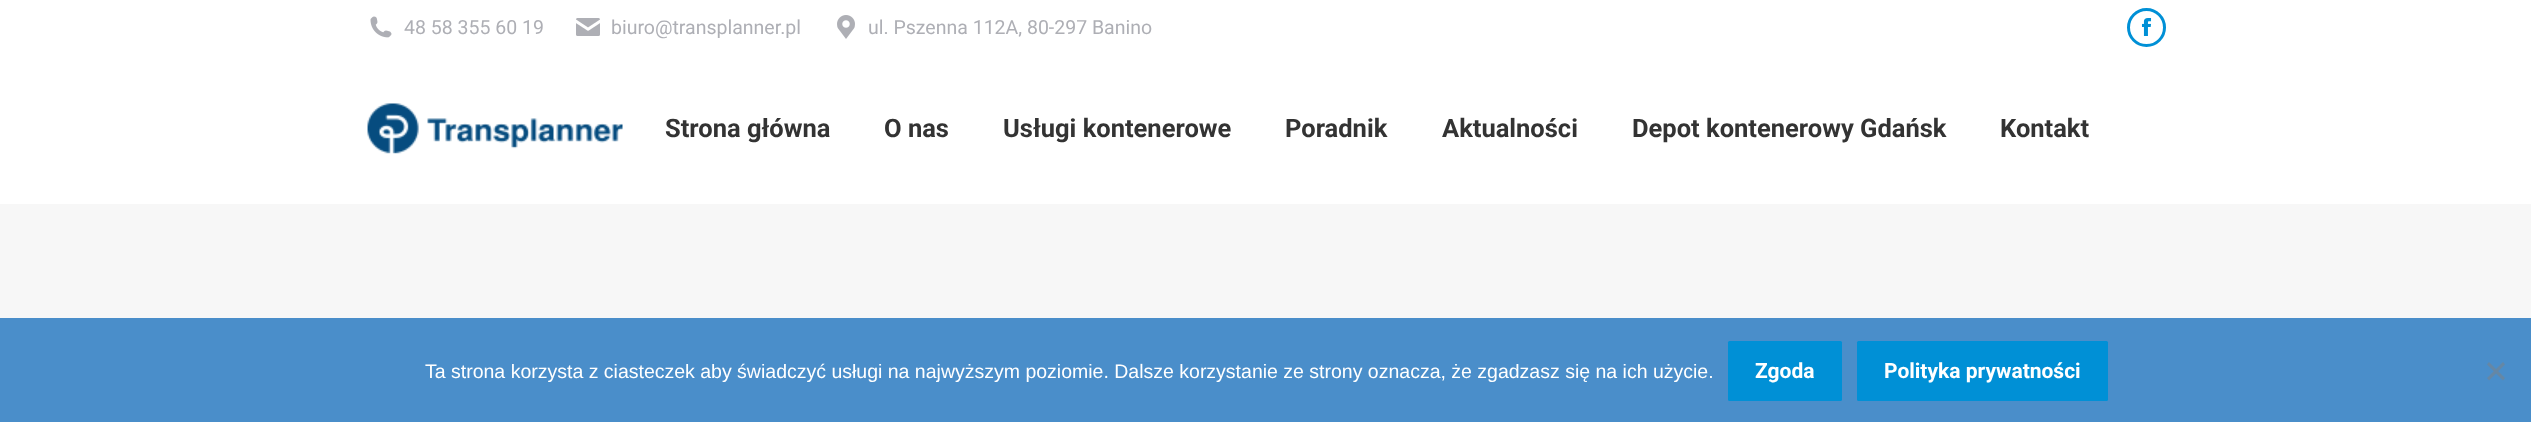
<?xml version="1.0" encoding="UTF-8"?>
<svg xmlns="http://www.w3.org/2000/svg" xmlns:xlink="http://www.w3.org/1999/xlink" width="2531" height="422">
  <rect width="100%" height="100%" fill="#ffffff" />
  <image x="370" y="16" width="22" height="22" xlink:href="image1.png" />
  <image x="576" y="18" width="24" height="18" xlink:href="image2.png" />
  <image x="837" y="15" width="18" height="24" xlink:href="image3.png" />
  <circle cx="2146.5" cy="27.5" r="18" fill="none" stroke="#0090d6" stroke-width="3" />
  <image x="2141" y="18" width="11" height="18" xlink:href="image4.png" />
  <image x="367" y="103" width="256" height="51" xlink:href="image5.png" />
  <rect y="204" width="2531" height="218" fill="#f7f7f7" />
  <rect y="318" width="2531" height="104" fill="#1e73be" fill-opacity="0.8" />
  <rect x="1728" y="341" width="114" height="60" rx="1.5" fill="#0090d6" />
  <rect x="1857" y="341" width="251" height="60" rx="1.5" fill="#0090d6" />
  <path d="M 2503 362 l 2 2.5 l -16 16 l -2 -2.5 z" fill="#6587a5" />
  <path d="M 2487 364.5 l 2 -2.5 l 16 16 l -2 2.5 z" fill="#6587a5" />
  <text x="404" y="34" style="font-family: Roboto; font-size: 19.5px; fill: #aeafb5">48 58 355 60 19</text>
  <text x="611" y="34" style="font-family: Roboto; font-size: 19.5px; fill: #aeafb5">biuro@transplanner.pl</text>
  <text x="868" y="34" style="font-family: Roboto; font-size: 19.5px; fill: #aeafb5">ul. Pszenna 112A, 80-297 Banino</text>
  <text x="665" y="137" style="font-family: Roboto; font-size: 25.5px; font-weight: bold; fill: #333333">Strona główna</text>
  <text x="884" y="137" style="font-family: Roboto; font-size: 25.5px; font-weight: bold; fill: #333333">O nas</text>
  <text x="1003" y="137" style="font-family: Roboto; font-size: 25.5px; font-weight: bold; fill: #333333">Usługi kontenerowe</text>
  <text x="1285" y="137" style="font-family: Roboto; font-size: 25.5px; font-weight: bold; fill: #333333">Poradnik</text>
  <text x="1442" y="137" style="font-family: Roboto; font-size: 25.5px; font-weight: bold; fill: #333333">Aktualności</text>
  <text x="1632" y="137" style="font-family: Roboto; font-size: 25.5px; font-weight: bold; fill: #333333">Depot kontenerowy Gdańsk</text>
  <text x="2000" y="137" style="font-family: Roboto; font-size: 25.5px; font-weight: bold; fill: #333333">Kontakt</text>
  <text x="425" y="378" style="font-family: Liberation Sans; font-size: 19.5px; fill: #ffffff">Ta strona korzysta z ciasteczek aby świadczyć usługi na najwyższym poziomie. Dalsze korzystanie ze strony oznacza, że zgadzasz się na ich użycie.</text>
  <text x="1755" y="378" style="font-family: Roboto; font-size: 21px; font-weight: bold; fill: #ffffff">Zgoda</text>
  <text x="1884" y="378" style="font-family: Roboto; font-size: 21px; font-weight: bold; fill: #ffffff">Polityka prywatności</text>
</svg>
